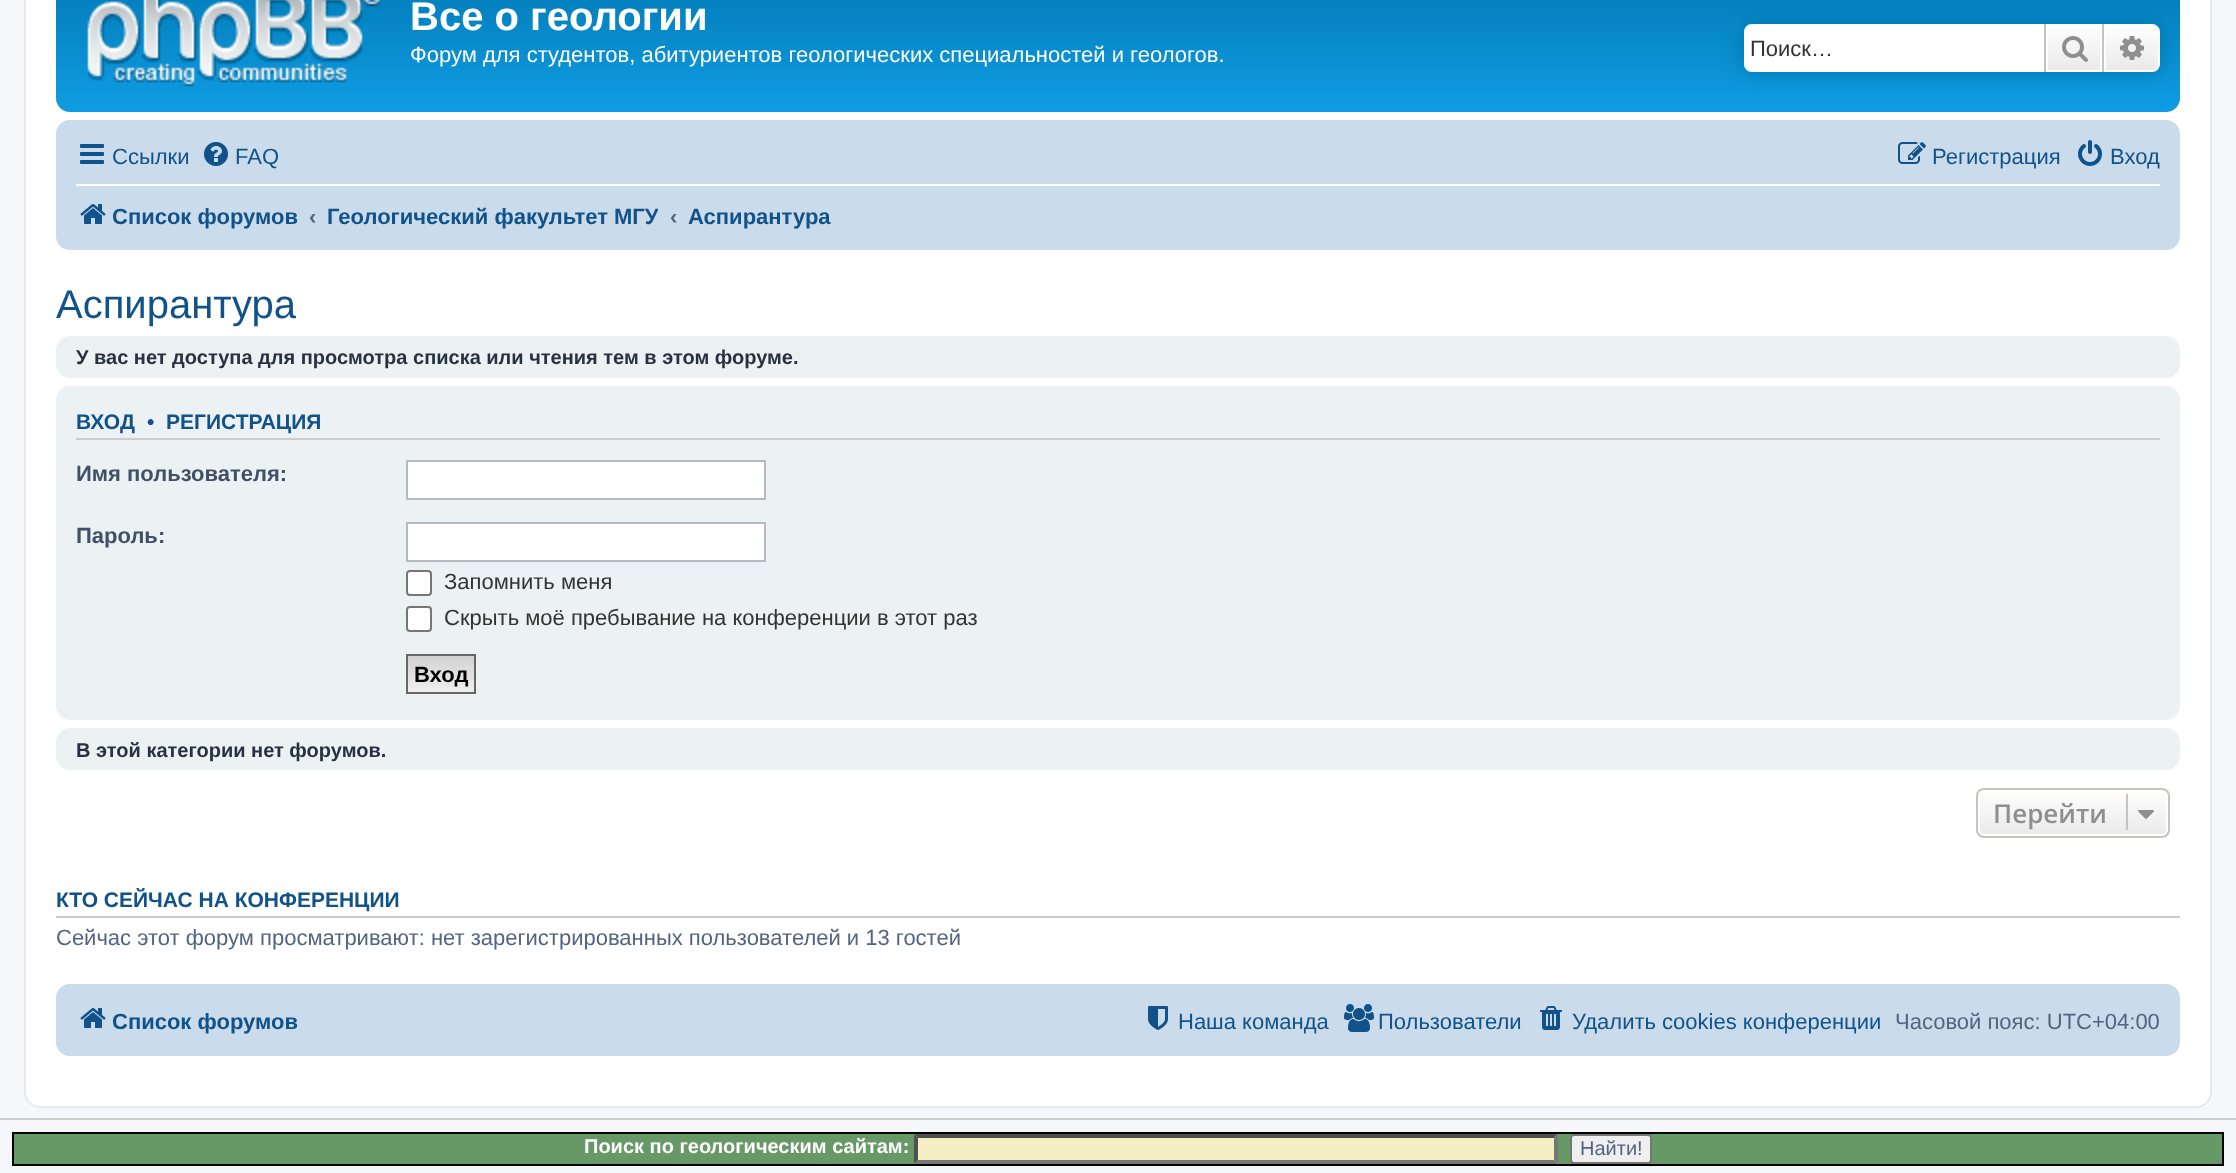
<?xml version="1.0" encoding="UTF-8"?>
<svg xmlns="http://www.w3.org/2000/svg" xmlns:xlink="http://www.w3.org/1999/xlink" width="2236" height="1173">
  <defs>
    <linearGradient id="g1" gradientUnits="userSpaceOnUse" x1="1118" y1="-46" x2="1118" y2="138"><stop offset="0" stop-color="#6aceff" /><stop offset="0.02" stop-color="#0076b1" /><stop offset="1" stop-color="#12a3eb" /></linearGradient>
    <linearGradient id="g2" gradientUnits="userSpaceOnUse" x1="2074" y1="24" x2="2074" y2="72"><stop offset="0" stop-color="#ffffff" /><stop offset="1" stop-color="#e9e9e9" /></linearGradient>
    <linearGradient id="g3" gradientUnits="userSpaceOnUse" x1="2132" y1="24" x2="2132" y2="72"><stop offset="0" stop-color="#ffffff" /><stop offset="1" stop-color="#e9e9e9" /></linearGradient>
    <linearGradient id="g4" gradientUnits="userSpaceOnUse" x1="441" y1="656" x2="441" y2="692"><stop offset="0" stop-color="#d2d2d2" /><stop offset="1" stop-color="#efefef" /></linearGradient>
    <clipPath id="clip1"><rect x="1976" y="788" width="194" height="50" rx="8" /></clipPath>
    <linearGradient id="g5" gradientUnits="userSpaceOnUse" x1="2073" y1="790" x2="2073" y2="836"><stop offset="0" stop-color="#ffffff" /><stop offset="1" stop-color="#e9e9e9" /></linearGradient>
    <clipPath id="clip2"><rect x="328" y="192" width="330" height="48" /></clipPath>
  </defs>
  <rect width="100%" height="100%" fill="#f5f7fa" />
  <rect x="25" y="-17" width="2186" height="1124" rx="15" fill="#ffffff" stroke="#e6e9ed" stroke-width="2" />
  <rect x="56" y="-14" width="2124" height="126" rx="14" fill="url(#g1)" />
  <image x="87" y="0" width="296" height="87" xlink:href="image1.png" />
  <rect x="1744" y="24" width="416" height="48" rx="8" fill="#0075b0" filter="blur(10px)" />
  <path d="M 1752 24 h 292 v 48 h -292 c -4.5 0 -8 -3.5 -8 -8 v -32 c 0 -4.5 3.5 -8 8 -8 z" fill="#ffffff" />
  <rect x="2048" y="26" width="52" height="44" fill="url(#g2)" />
  <rect x="2047" y="25" width="54" height="46" fill="none" stroke="#ffffff" stroke-width="2" />
  <rect x="2102" y="24" width="2" height="48" fill="#c7c3bf" />
  <rect x="2044" y="24" width="2" height="48" fill="#c7c3bf" />
  <image x="2062" y="36" width="26" height="26" xlink:href="image2.png" />
  <path d="M 2105 25 h 47 c 4 0 7 3 7 7 v 32 c 0 4 -3 7 -7 7 h -47 z" fill="url(#g3)" stroke="#ffffff" stroke-width="2" />
  <image x="2120" y="36" width="24" height="24" xlink:href="image3.png" />
  <rect x="56" y="120" width="2124" height="130" rx="14" fill="#cadceb" />
  <image x="80" y="144" width="24" height="20" xlink:href="image4.png" />
  <image x="204" y="142" width="24" height="24" xlink:href="image5.png" />
  <image x="1898" y="142" width="28" height="22" xlink:href="image6.png" />
  <image x="2078" y="140" width="24" height="26" xlink:href="image7.png" />
  <rect x="76" y="184" width="2084" height="2" fill="#ffffff" />
  <image x="80" y="204" width="26" height="20" xlink:href="image8.png" />
  <rect x="56" y="336" width="2124" height="42" rx="14" fill="#ecf1f3" />
  <rect x="56" y="386" width="2124" height="334" rx="14" fill="#ecf1f3" />
  <rect x="76" y="438" width="2084" height="2" fill="#cccccc" />
  <rect x="407" y="461" width="358" height="38" fill="#ffffff" stroke="#b4bac0" stroke-width="2" />
  <rect x="407" y="523" width="358" height="38" fill="#ffffff" stroke="#b4bac0" stroke-width="2" />
  <rect x="407" y="571" width="24" height="24" rx="3" fill="#ffffff" stroke="#767676" stroke-width="2" />
  <rect x="407" y="607" width="24" height="24" rx="3" fill="#ffffff" stroke="#767676" stroke-width="2" />
  <rect x="408" y="656" width="66" height="36" fill="url(#g4)" />
  <rect x="407" y="655" width="68" height="38" fill="none" stroke="#666666" stroke-width="2" />
  <rect x="56" y="728" width="2124" height="42" rx="14" fill="#ecf1f3" />
  <g clip-path="url(#clip1)">
    <rect x="1976" y="790" width="194" height="46" fill="url(#g5)" />
  </g>
  <rect x="1979" y="791" width="188" height="44" rx="5" fill="none" stroke="#ffffff" stroke-width="2" />
  <rect x="1977" y="789" width="192" height="48" rx="7" fill="none" stroke="#c7c3bf" stroke-width="2" />
  <rect x="2126" y="794" width="2" height="36" fill="#c7c3bf" />
  <image x="2138" y="810" width="16" height="9" xlink:href="image9.png" />
  <rect x="56" y="916" width="2124" height="2" fill="#cccccc" />
  <rect x="56" y="984" width="2124" height="72" rx="14" fill="#cadceb" />
  <image x="80" y="1008" width="26" height="20" xlink:href="image8.png" />
  <image x="1148" y="1006" width="20" height="24" xlink:href="image10.png" />
  <image x="1344" y="1004" width="30" height="28" xlink:href="image11.png" />
  <image x="1540" y="1006" width="22" height="24" xlink:href="image12.png" />
  <rect y="1118" width="2236" height="2" fill="#cccccc" />
  <rect x="14" y="1134" width="2208" height="30" fill="#669966" />
  <rect x="12" y="1132" width="2212" height="2" fill="#000000" />
  <rect x="2222" y="1132" width="2" height="34" fill="#000000" />
  <rect x="12" y="1164" width="2212" height="2" fill="#000000" />
  <rect x="12" y="1132" width="2" height="34" fill="#000000" />
  <rect x="914" y="1134" width="644" height="30" fill="#f7efc4" />
  <path d="M 914 1134 h 644 l -4 4 h -636 z" fill="#4f4f4f" />
  <path d="M 1558 1134 v 30 l -4 -4 v -22 z" fill="#767676" />
  <path d="M 1558 1164 h -644 l 4 -4 h 636 z" fill="#767676" />
  <path d="M 914 1164 v -30 l 4 4 v 22 z" fill="#4f4f4f" />
  <rect x="1571" y="1135" width="80" height="28" rx="3" fill="#efefef" stroke="#767676" stroke-width="2" />
  <text x="410" y="30" style="font-family: Liberation Sans; font-size: 40px; font-weight: bold; fill: #ffffff">Все о геологии</text>
  <text x="410" y="62" style="font-family: Liberation Sans; font-size: 22px; fill: #ffffff">Форум для студентов, абитуриентов геологических специальностей и геологов.</text>
  <text x="1750" y="56" style="font-family: Liberation Sans; font-size: 22px; fill: #333333">Поиск…</text>
  <text x="112" y="164" style="font-family: Liberation Sans; font-size: 22px; fill: #105289">Ссылки</text>
  <text x="235" y="164" style="font-family: Liberation Sans; font-size: 22px; fill: #105289">FAQ</text>
  <text x="1932" y="164" style="font-family: Liberation Sans; font-size: 22px; fill: #105289">Регистрация</text>
  <text x="2110" y="164" style="font-family: Liberation Sans; font-size: 22px; fill: #105289">Вход</text>
  <text x="112" y="224" style="font-family: Liberation Sans; font-size: 22px; font-weight: bold; fill: #105289">Список форумов</text>
  <text x="309" y="224" style="font-family: Liberation Sans; font-size: 22px; font-weight: bold; fill: #536482">‹</text>
  <g clip-path="url(#clip2)">
    <text x="327" y="224" style="font-family: Liberation Sans; font-size: 22px; font-weight: bold; fill: #105289">Геологический факультет МГУ</text>
  </g>
  <text x="670" y="224" style="font-family: Liberation Sans; font-size: 22px; font-weight: bold; fill: #536482">‹</text>
  <text x="688" y="224" style="font-family: Liberation Sans; font-size: 22px; font-weight: bold; fill: #105289">Аспирантура</text>
  <text x="56" y="318" style="font-family: Liberation Sans; font-size: 40px; fill: #105289">Аспирантура</text>
  <text x="76" y="364" style="font-family: Liberation Sans; font-size: 20px; font-weight: bold; fill: #28313f">У вас нет доступа для просмотра списка или чтения тем в этом форуме.</text>
  <text x="76" y="429" style="font-family: Liberation Sans; font-size: 21px; font-weight: bold; fill: #105289">ВХОД</text>
  <text x="147" y="429" style="font-family: Liberation Sans; font-size: 21px; font-weight: bold; fill: #115098">•</text>
  <text x="166" y="429" style="font-family: Liberation Sans; font-size: 21px; font-weight: bold; fill: #105289">РЕГИСТРАЦИЯ</text>
  <text x="76" y="481" style="font-family: Liberation Sans; font-size: 22px; font-weight: bold; fill: #425067">Имя пользователя:</text>
  <text x="76" y="543" style="font-family: Liberation Sans; font-size: 22px; font-weight: bold; fill: #425067">Пароль:</text>
  <text x="444" y="589" style="font-family: Liberation Sans; font-size: 22px; fill: #333333">Запомнить меня</text>
  <text x="444" y="625" style="font-family: Liberation Sans; font-size: 22px; fill: #333333">Скрыть моё пребывание на конференции в этот раз</text>
  <text x="414" y="682" style="font-family: Liberation Sans; font-size: 22px; font-weight: bold; fill: #000000">Вход</text>
  <text x="76" y="757" style="font-family: Liberation Sans; font-size: 20px; font-weight: bold; fill: #28313f">В этой категории нет форумов.</text>
  <text x="1993" y="823" style="font-family: Open Sans; font-size: 26px; font-weight: 600; fill: #8f8f8f">Перейти</text>
  <text x="56" y="907" style="font-family: Liberation Sans; font-size: 21px; font-weight: bold; fill: #105289">КТО СЕЙЧАС НА КОНФЕРЕНЦИИ</text>
  <text x="56" y="945" style="font-family: Liberation Sans; font-size: 22px; fill: #536482">Сейчас этот форум просматривают: нет зарегистрированных пользователей и 13 гостей</text>
  <text x="112" y="1029" style="font-family: Liberation Sans; font-size: 22px; font-weight: bold; fill: #105289">Список форумов</text>
  <text x="1178" y="1029" style="font-family: Liberation Sans; font-size: 22px; fill: #105289">Наша команда</text>
  <text x="1378" y="1029" style="font-family: Liberation Sans; font-size: 22px; fill: #105289">Пользователи</text>
  <text x="1572" y="1029" style="font-family: Liberation Sans; font-size: 22px; fill: #105289">Удалить cookies конференции</text>
  <text x="1895" y="1029" style="font-family: Liberation Sans; font-size: 22px; fill: #536482">Часовой пояс: UTC+04:00</text>
  <text x="584" y="1153" style="font-family: Liberation Sans; font-size: 20px; font-weight: bold; fill: #ffffff">Поиск по геологическим сайтам:</text>
  <text x="1580" y="1155" style="font-family: Liberation Sans; font-size: 20px; fill: #536482">Найти!</text>
</svg>
